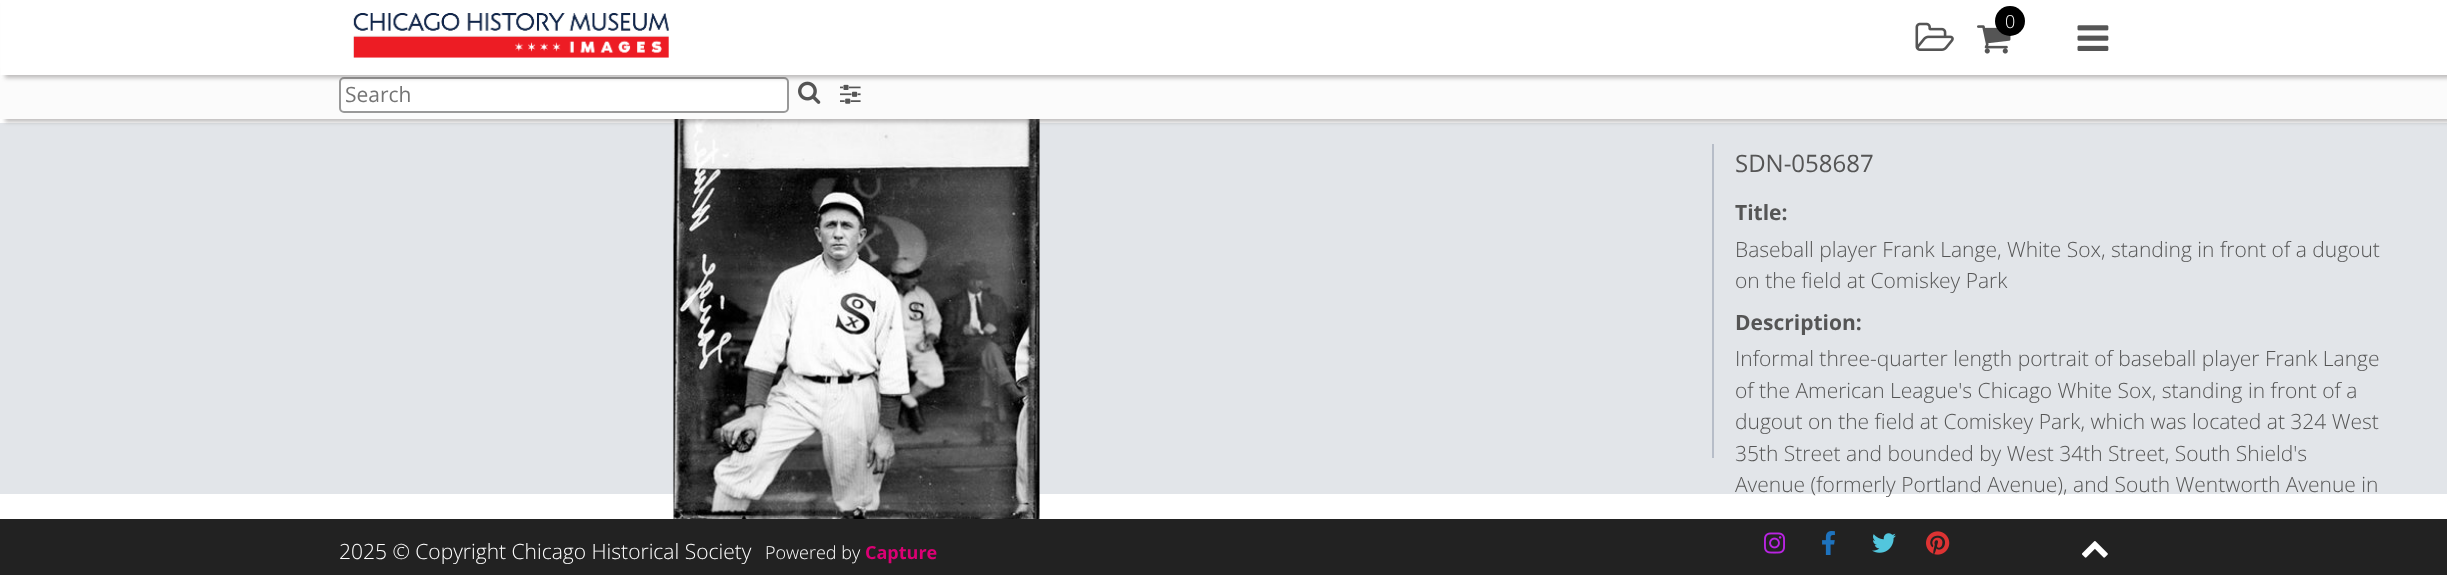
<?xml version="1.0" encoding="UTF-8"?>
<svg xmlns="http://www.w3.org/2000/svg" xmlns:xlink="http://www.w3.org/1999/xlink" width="2447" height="575">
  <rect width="100%" height="100%" fill="#ffffff" />
  <rect y="123" width="2447" height="371" fill="#e2e5e9" />
  <image x="673" y="119" width="367" height="400" xlink:href="image7.png" />
  <rect x="5" y="68" width="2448" height="54" fill="#4a4545" fill-opacity="0.35" filter="blur(2px)" />
  <rect y="75" width="2447" height="44" fill="#fbfbfb" />
  <rect x="340" y="78" width="448" height="34" rx="4" fill="#ffffff" stroke="#999999" stroke-width="2" />
  <image x="798" y="81" width="23" height="23" xlink:href="image5.png" />
  <image x="840" y="84" width="21" height="20" xlink:href="image6.png" />
  <rect x="5" y="3" width="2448" height="75" fill="#4a4545" fill-opacity="0.35" filter="blur(2px)" />
  <rect x="1" width="2446" height="75" fill="#ffffff" />
  <image x="353" y="13" width="316" height="45" xlink:href="image1.png" />
  <image x="1915" y="22" width="39" height="29" xlink:href="image2.png" />
  <image x="1977" y="25" width="34" height="29" xlink:href="image3.png" />
  <circle cx="2010" cy="21" r="15" fill="#000000" />
  <image x="2077" y="25" width="32" height="26" xlink:href="image4.png" />
  <rect x="1712" y="144" width="2" height="314" fill="#b7bdc8" />
  <rect y="519" width="2447" height="56" fill="#222222" />
  <image x="1764" y="532" width="21" height="22" xlink:href="image8.png" />
  <image x="1822" y="531" width="13" height="24" xlink:href="image9.png" />
  <image x="1872" y="533" width="24" height="20" xlink:href="image10.png" />
  <image x="1926" y="531" width="24" height="24" xlink:href="image11.png" />
  <image x="2082" y="541" width="26" height="17" xlink:href="image12.png" />
  <text x="2005" y="28" style="font-family: Open Sans; font-size: 18px; font-weight: 300; fill: #ffffff">0</text>
  <text x="345" y="102" style="font-family: Open Sans; font-size: 21px; fill: #757575">Search</text>
  <text x="1735" y="172" style="font-family: Open Sans; font-size: 24px; fill: #555555">SDN-058687</text>
  <text x="1735" y="220" style="font-family: Open Sans; font-size: 21px; font-weight: bold; fill: #555555">Title:</text>
  <text x="1735" y="257" style="font-family: Open Sans; font-size: 21px; font-weight: 300; fill: #555555">Baseball player Frank Lange, White Sox, standing in front of a dugout</text>
  <text x="1735" y="288" style="font-family: Open Sans; font-size: 21px; font-weight: 300; fill: #555555">on the field at Comiskey Park</text>
  <text x="1735" y="330" style="font-family: Open Sans; font-size: 21px; font-weight: bold; fill: #555555">Description:</text>
  <text x="1735" y="366" style="font-family: Open Sans; font-size: 21px; font-weight: 300; fill: #555555">Informal three-quarter length portrait of baseball player Frank Lange</text>
  <text x="1735" y="398" style="font-family: Open Sans; font-size: 21px; font-weight: 300; fill: #555555">of the American League's Chicago White Sox, standing in front of a</text>
  <text x="1735" y="429" style="font-family: Open Sans; font-size: 21px; font-weight: 300; fill: #555555">dugout on the field at Comiskey Park, which was located at 324 West</text>
  <text x="1735" y="461" style="font-family: Open Sans; font-size: 21px; font-weight: 300; fill: #555555">35th Street and bounded by West 34th Street, South Shield's</text>
  <text x="1735" y="492" style="font-family: Open Sans; font-size: 21px; font-weight: 300; fill: #555555">Avenue (formerly Portland Avenue), and South Wentworth Avenue in</text>
  <text x="339" y="559" style="font-family: Open Sans; font-size: 21px; font-weight: 300; fill: #ffffff">2025 © Copyright Chicago Historical Society</text>
  <text x="765" y="559" style="font-family: Open Sans; font-size: 18px; font-weight: 300; fill: #ffffff">Powered by</text>
  <text x="865" y="559" style="font-family: Open Sans; font-size: 18px; font-weight: bold; fill: #db0074">Capture</text>
</svg>
